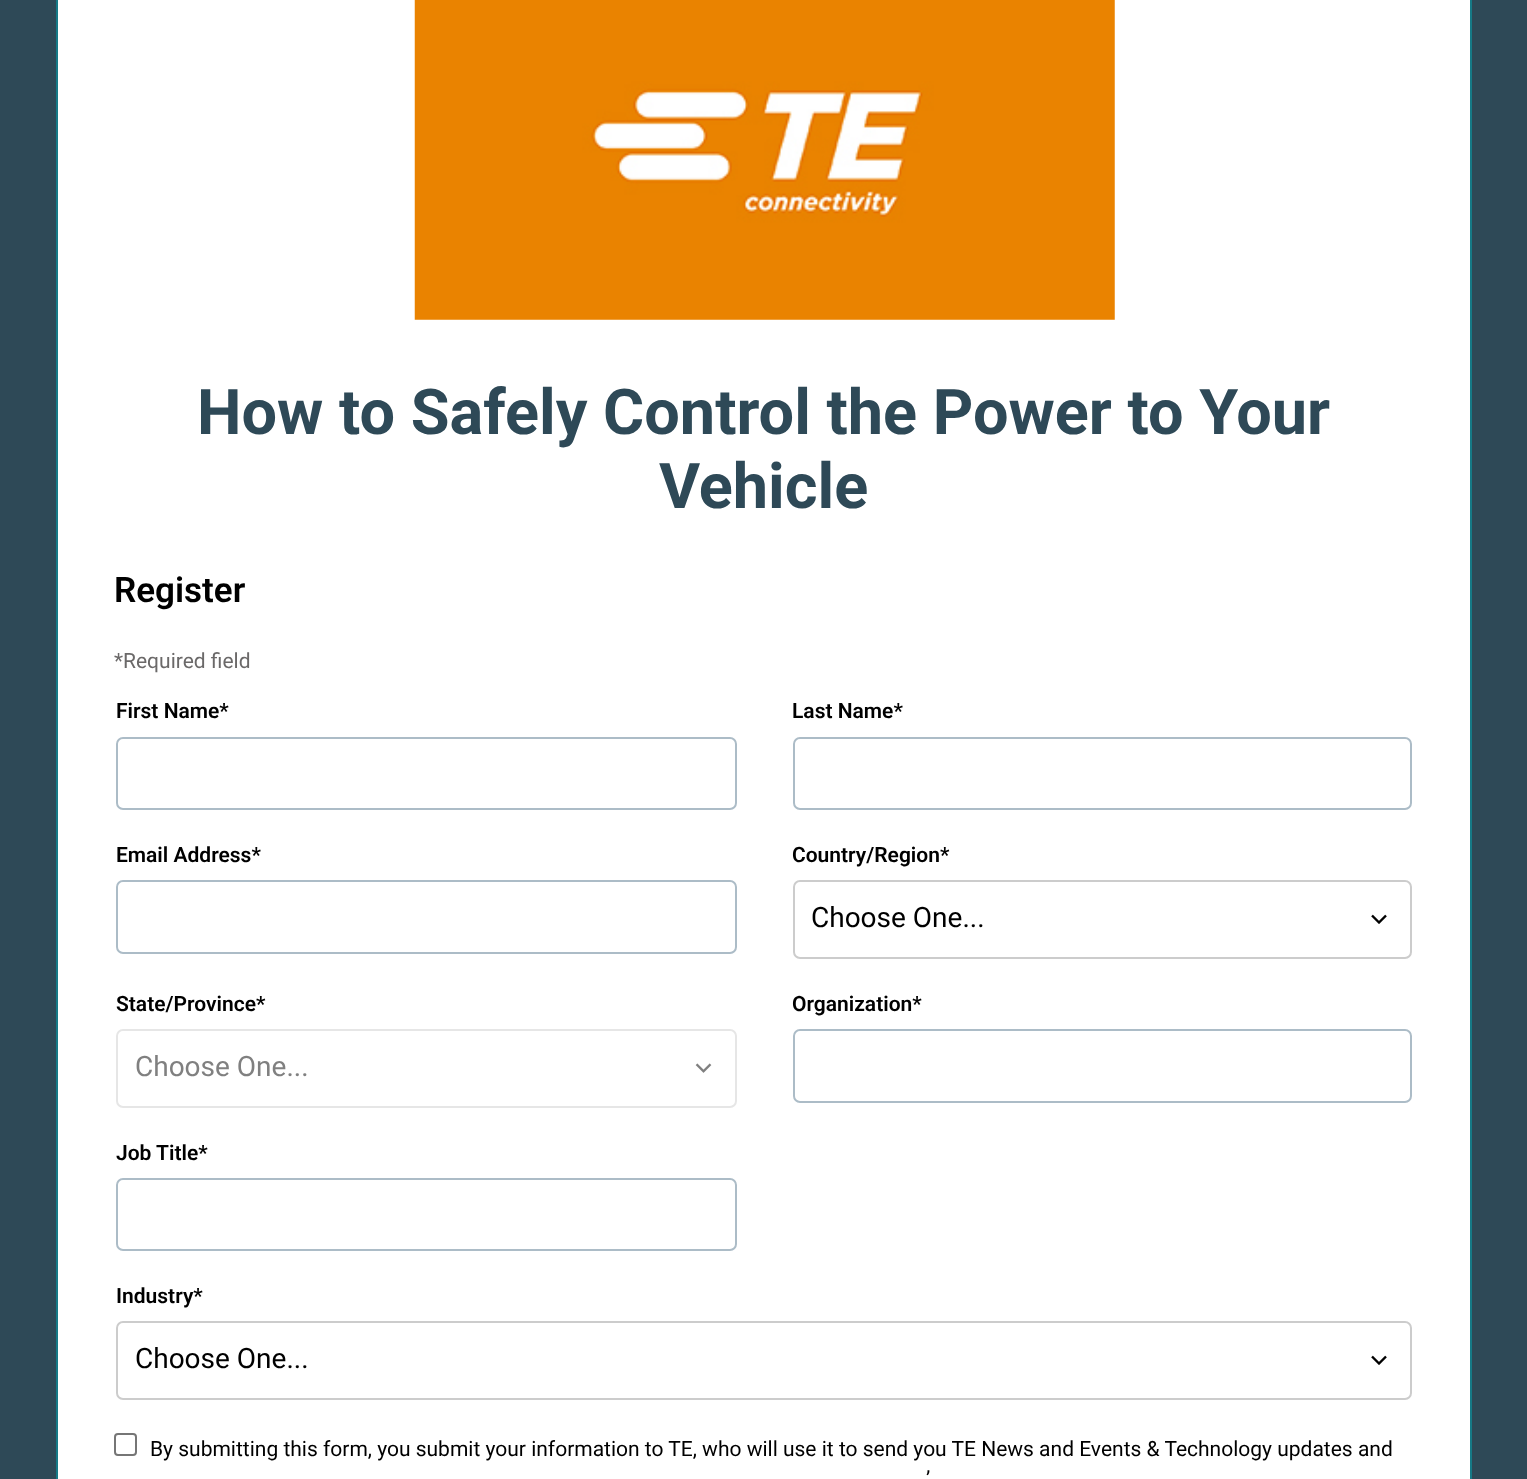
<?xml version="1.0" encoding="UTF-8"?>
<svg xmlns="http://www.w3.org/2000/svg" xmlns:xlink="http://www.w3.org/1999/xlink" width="1527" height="1479">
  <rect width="100%" height="100%" fill="#2e4957" />
  <rect x="57" y="-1" width="1414" height="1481" fill="#ffffff" stroke="#167a87" stroke-width="2" />
  <image x="414" y="0" width="701" height="320" xlink:href="image1.png" />
  <rect x="117" y="738" width="619" height="71" rx="6" fill="none" stroke="#acbcc7" stroke-width="2" />
  <rect x="794" y="738" width="617" height="71" rx="6" fill="none" stroke="#acbcc7" stroke-width="2" />
  <rect x="117" y="881" width="619" height="72" rx="6" fill="none" stroke="#acbcc7" stroke-width="2" />
  <rect x="794" y="881" width="617" height="77" rx="6" fill="none" stroke="#cccccc" stroke-width="2" />
  <image x="1371" y="914" width="16" height="10" xlink:href="image2.png" />
  <rect x="117" y="1030" width="619" height="77" rx="6" fill="none" stroke="#e6e6e6" stroke-width="2" />
  <image x="695" y="1063" width="17" height="10" xlink:href="image3.png" />
  <rect x="794" y="1030" width="617" height="72" rx="6" fill="none" stroke="#acbcc7" stroke-width="2" />
  <rect x="117" y="1179" width="619" height="71" rx="6" fill="none" stroke="#acbcc7" stroke-width="2" />
  <rect x="117" y="1322" width="1294" height="77" rx="6" fill="none" stroke="#cccccc" stroke-width="2" />
  <image x="1371" y="1355" width="16" height="10" xlink:href="image2.png" />
  <rect x="115" y="1434" width="21" height="21" rx="3" fill="none" stroke="#767676" stroke-width="2" />
  <text x="197" y="434" style="font-family: Roboto; font-size: 63px; font-weight: bold; fill: #2e4957">How to Safely Control the Power to Your</text>
  <text x="659" y="508" style="font-family: Roboto; font-size: 63px; font-weight: bold; fill: #2e4957">Vehicle</text>
  <text x="114" y="602" style="font-family: Roboto; font-size: 35px; font-weight: 600; fill: #000000">Register</text>
  <text x="114" y="668" style="font-family: Roboto; font-size: 21px; fill: #6b6969">*Required field</text>
  <text x="116" y="718" style="font-family: Roboto; font-size: 21px; font-weight: 600; fill: #000000">First Name*</text>
  <text x="792" y="718" style="font-family: Roboto; font-size: 21px; font-weight: 600; fill: #000000">Last Name*</text>
  <text x="116" y="862" style="font-family: Roboto; font-size: 21px; font-weight: 600; fill: #000000">Email Address*</text>
  <text x="792" y="862" style="font-family: Roboto; font-size: 21px; font-weight: 600; fill: #000000">Country/Region*</text>
  <text x="811" y="927" style="font-family: Roboto; font-size: 28px; fill: #000000">Choose One...</text>
  <text x="116" y="1011" style="font-family: Roboto; font-size: 21px; font-weight: 600; fill: #000000">State/Province*</text>
  <text x="135" y="1076" style="font-family: Roboto; font-size: 28px; fill: #808080">Choose One...</text>
  <text x="792" y="1011" style="font-family: Roboto; font-size: 21px; font-weight: 600; fill: #000000">Organization*</text>
  <text x="116" y="1160" style="font-family: Roboto; font-size: 21px; font-weight: 600; fill: #000000">Job Title*</text>
  <text x="116" y="1303" style="font-family: Roboto; font-size: 21px; font-weight: 600; fill: #000000">Industry*</text>
  <text x="135" y="1368" style="font-family: Roboto; font-size: 28px; fill: #000000">Choose One...</text>
  <text x="150" y="1456" style="font-family: Roboto; font-size: 21px; fill: #000000">By submitting this form, you submit your information to TE, who will use it to send you TE News and Events &amp; Technology updates and</text>
  <text x="926" y="1486" style="font-family: Roboto; font-size: 21px; fill: #000000">’</text>
</svg>
